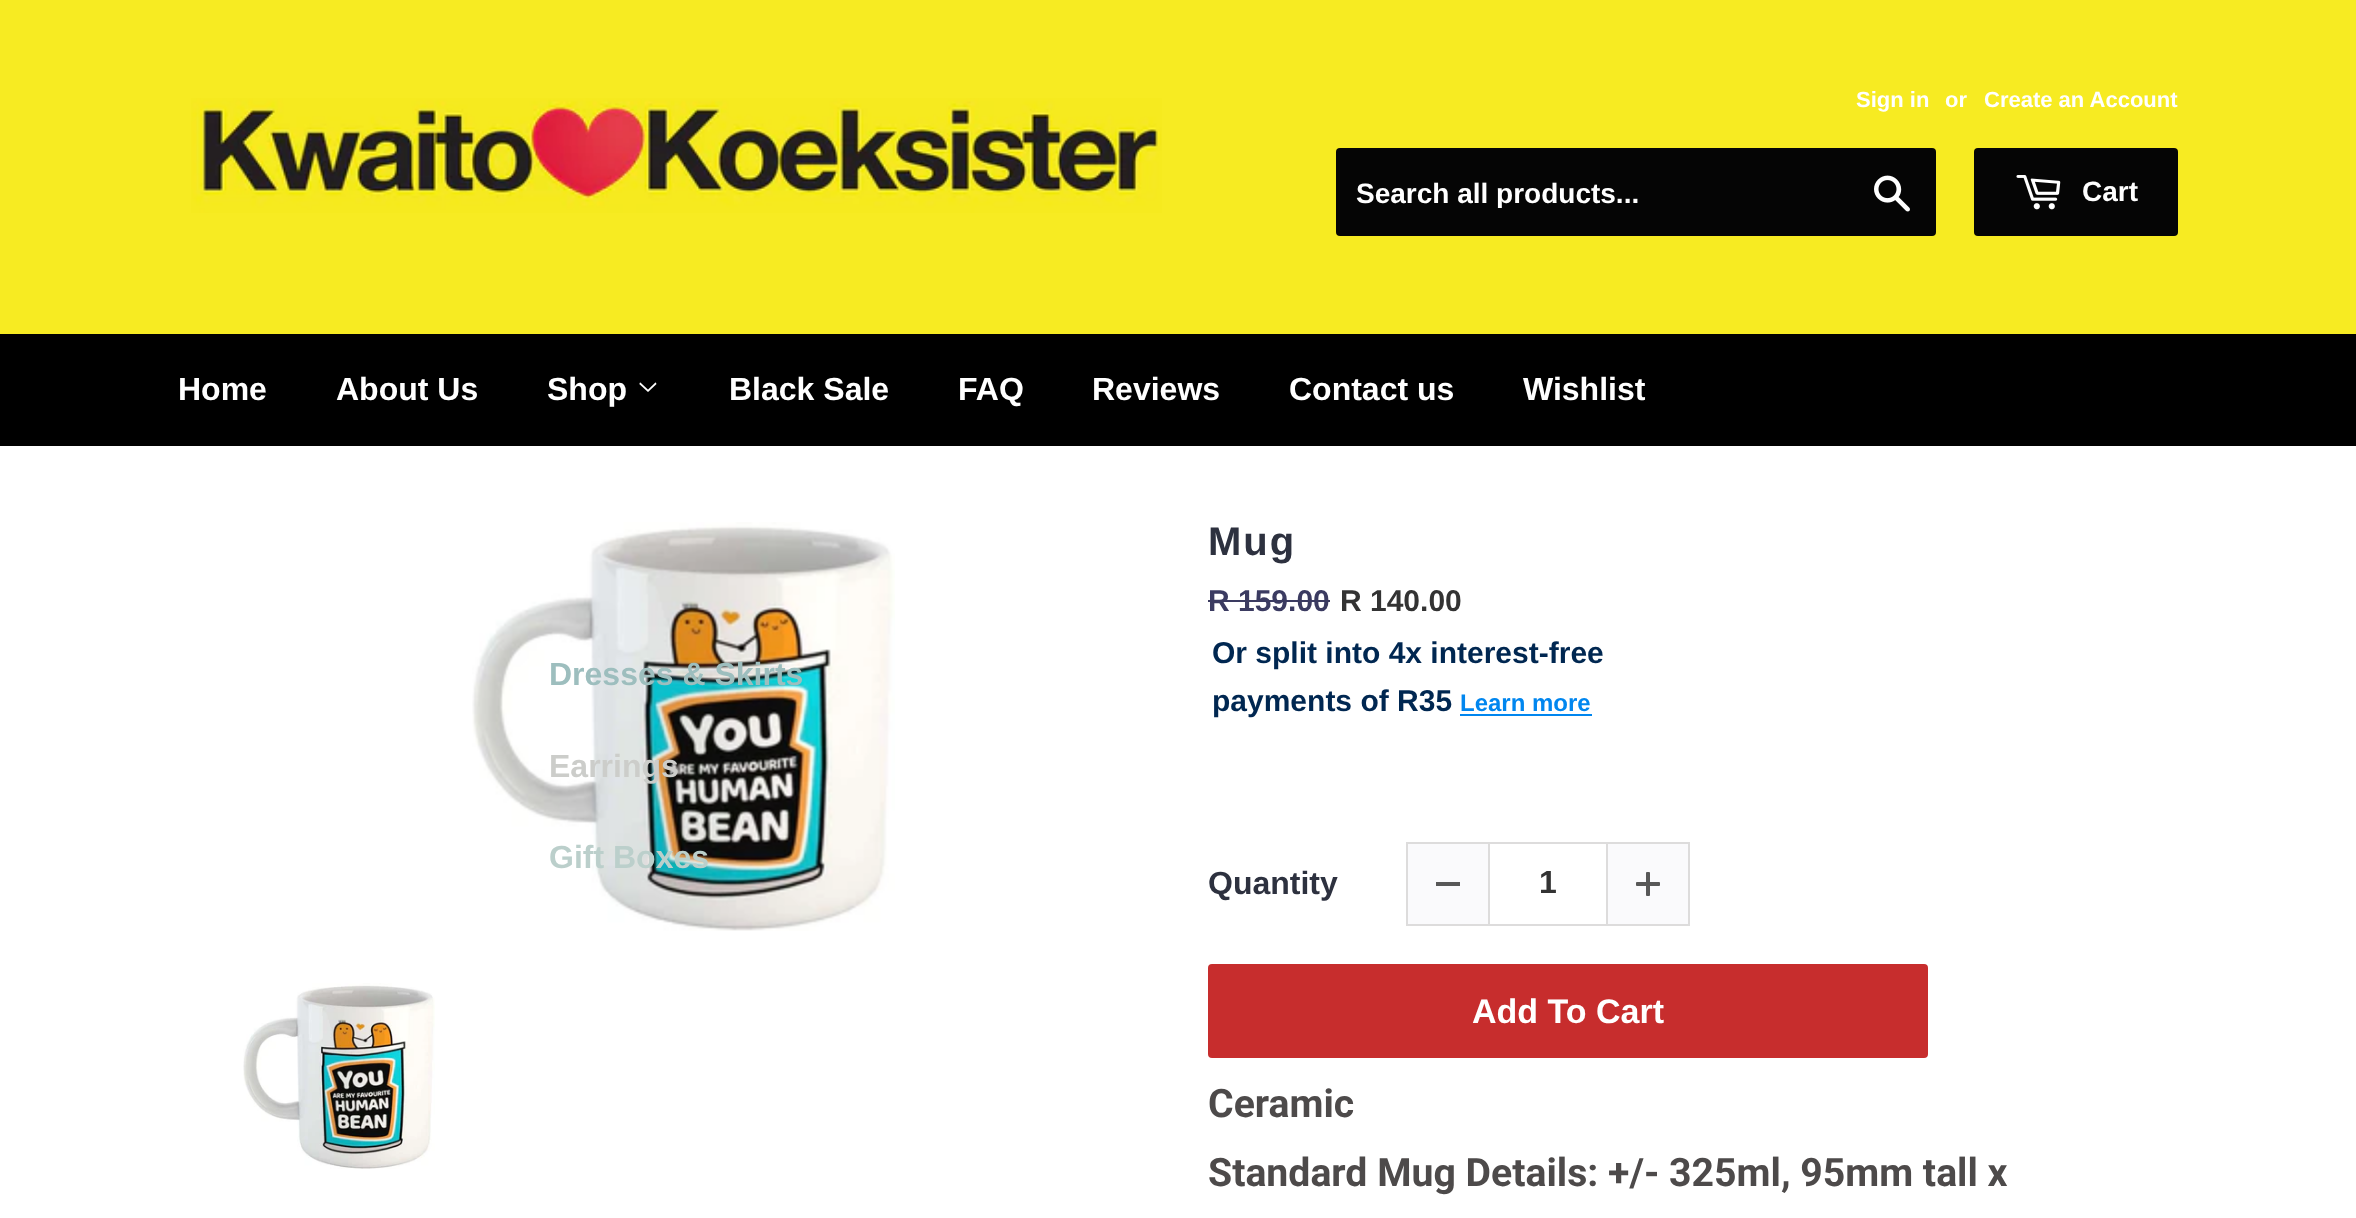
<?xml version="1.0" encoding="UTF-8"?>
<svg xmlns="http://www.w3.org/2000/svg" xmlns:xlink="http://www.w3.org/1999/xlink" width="2356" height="1218">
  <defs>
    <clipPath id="clip1"><rect x="1356" y="176" width="482" height="32" /></clipPath>
  </defs>
  <rect width="100%" height="100%" fill="#ffffff" />
  <rect width="2356" height="334" fill="#f7eb22" />
  <image x="191" y="98" width="971" height="115" xlink:href="image1.png" />
  <rect x="1336" y="148" width="600" height="88" rx="4" fill="#050505" />
  <image x="1874" y="175" width="36" height="37" xlink:href="image2.png" />
  <rect x="1974" y="148" width="204" height="88" rx="4" fill="#050505" />
  <image x="2016" y="175" width="45" height="35" xlink:href="image3.png" />
  <rect y="334" width="2356" height="112" fill="#000000" />
  <image x="639" y="382" width="18" height="10" xlink:href="image4.png" />
  <image x="472" y="522" width="423" height="409" xlink:href="image5.png" />
  <image x="243" y="983" width="192" height="186" xlink:href="image6.png" />
  <rect x="1208" y="600" width="122" height="2" fill="#3b3b61" />
  <rect x="1460" y="714" width="132" height="2" fill="#0086ef" />
  <rect x="1488" y="844" width="2" height="80" fill="#dddcdc" />
  <rect x="1606" y="844" width="2" height="80" fill="#dddcdc" />
  <rect x="1407" y="843" width="282" height="82" fill="none" stroke="#dddcdc" stroke-width="2" />
  <rect x="1408" y="844" width="80" height="80" fill="#fafafc" />
  <rect x="1436" y="882" width="24" height="4" fill="#585858" />
  <rect x="1608" y="844" width="80" height="80" fill="#fafafc" />
  <image x="1636" y="872" width="24" height="24" xlink:href="image7.png" />
  <rect x="1208" y="964" width="720" height="94" rx="4" fill="#c72d2d" />
  <text x="1856" y="107" style="font-family: Liberation Sans; font-size: 22px; font-weight: bold; fill: #ffffff">Sign in</text>
  <text x="1945" y="107" style="font-family: Liberation Sans; font-size: 22px; font-weight: bold; fill: #ffffff">or</text>
  <text x="1984" y="107" style="font-family: Liberation Sans; font-size: 22px; font-weight: bold; fill: #ffffff">Create an Account</text>
  <g clip-path="url(#clip1)">
    <text x="1356" y="203" style="font-family: Liberation Sans; font-size: 28px; font-weight: bold; fill: #ffffff">Search all products...</text>
  </g>
  <text x="2082" y="201" style="font-family: Liberation Sans; font-size: 28px; font-weight: bold; fill: #ffffff">Cart</text>
  <text x="178" y="400" style="font-family: Liberation Sans; font-size: 32px; font-weight: bold; fill: #ffffff">Home</text>
  <text x="336" y="400" style="font-family: Liberation Sans; font-size: 32px; font-weight: bold; fill: #ffffff">About Us</text>
  <text x="547" y="400" style="font-family: Liberation Sans; font-size: 32px; font-weight: bold; fill: #ffffff">Shop</text>
  <text x="549" y="685" style="font-family: Liberation Sans; font-size: 32px; font-weight: bold; fill: #9dbebe">Dresses &amp; Skirts</text>
  <text x="549" y="777" style="font-family: Liberation Sans; font-size: 32px; font-weight: bold; fill: #cccdca">Earrings</text>
  <text x="549" y="868" style="font-family: Liberation Sans; font-size: 32px; font-weight: bold; fill: #bbcfcb">Gift Boxes</text>
  <text x="729" y="400" style="font-family: Liberation Sans; font-size: 32px; font-weight: bold; fill: #ffffff">Black Sale</text>
  <text x="958" y="400" style="font-family: Liberation Sans; font-size: 32px; font-weight: bold; fill: #ffffff">FAQ</text>
  <text x="1092" y="400" style="font-family: Liberation Sans; font-size: 32px; font-weight: bold; fill: #ffffff">Reviews</text>
  <text x="1289" y="400" style="font-family: Liberation Sans; font-size: 32px; font-weight: bold; fill: #ffffff">Contact us</text>
  <text x="1523" y="400" style="font-family: Liberation Sans; font-size: 32px; font-weight: bold; fill: #ffffff">Wishlist</text>
  <text x="1208" y="555" style="font-family: Liberation Sans; font-size: 40px; font-weight: bold; letter-spacing: 2px; fill: #2d313f">Mug</text>
  <text x="1208" y="611" style="font-family: Liberation Sans; font-size: 30px; font-weight: bold; fill: #3b3b61">R 159.00</text>
  <text x="1340" y="611" style="font-family: Liberation Sans; font-size: 30px; font-weight: bold; fill: #333333">R 140.00</text>
  <text x="1212" y="663" style="font-family: Liberation Sans; font-size: 30px; font-weight: bold; fill: #002751">Or split into 4x interest-free</text>
  <text x="1212" y="711" style="font-family: Liberation Sans; font-size: 30px; font-weight: bold; fill: #002751">payments of R35</text>
  <text x="1460" y="711" style="font-family: Liberation Sans; font-size: 24px; font-weight: bold; fill: #0086ef">Learn more</text>
  <text x="1208" y="894" style="font-family: Liberation Sans; font-size: 32px; font-weight: bold; fill: #2d313f">Quantity</text>
  <text x="1539" y="893" style="font-family: Liberation Sans; font-size: 32px; font-weight: bold; fill: #333333">1</text>
  <text x="1472" y="1023" style="font-family: Liberation Sans; font-size: 34px; font-weight: bold; fill: #ffffff">Add To Cart</text>
  <text x="1208" y="1117" style="font-family: Roboto; font-size: 39.2px; font-weight: bold; fill: #4d4a4a">Ceramic</text>
  <text x="1208" y="1186" style="font-family: Roboto; font-size: 39.2px; font-weight: bold; fill: #4d4a4a">Standard Mug Details: +/- 325ml, 95mm tall x</text>
</svg>
